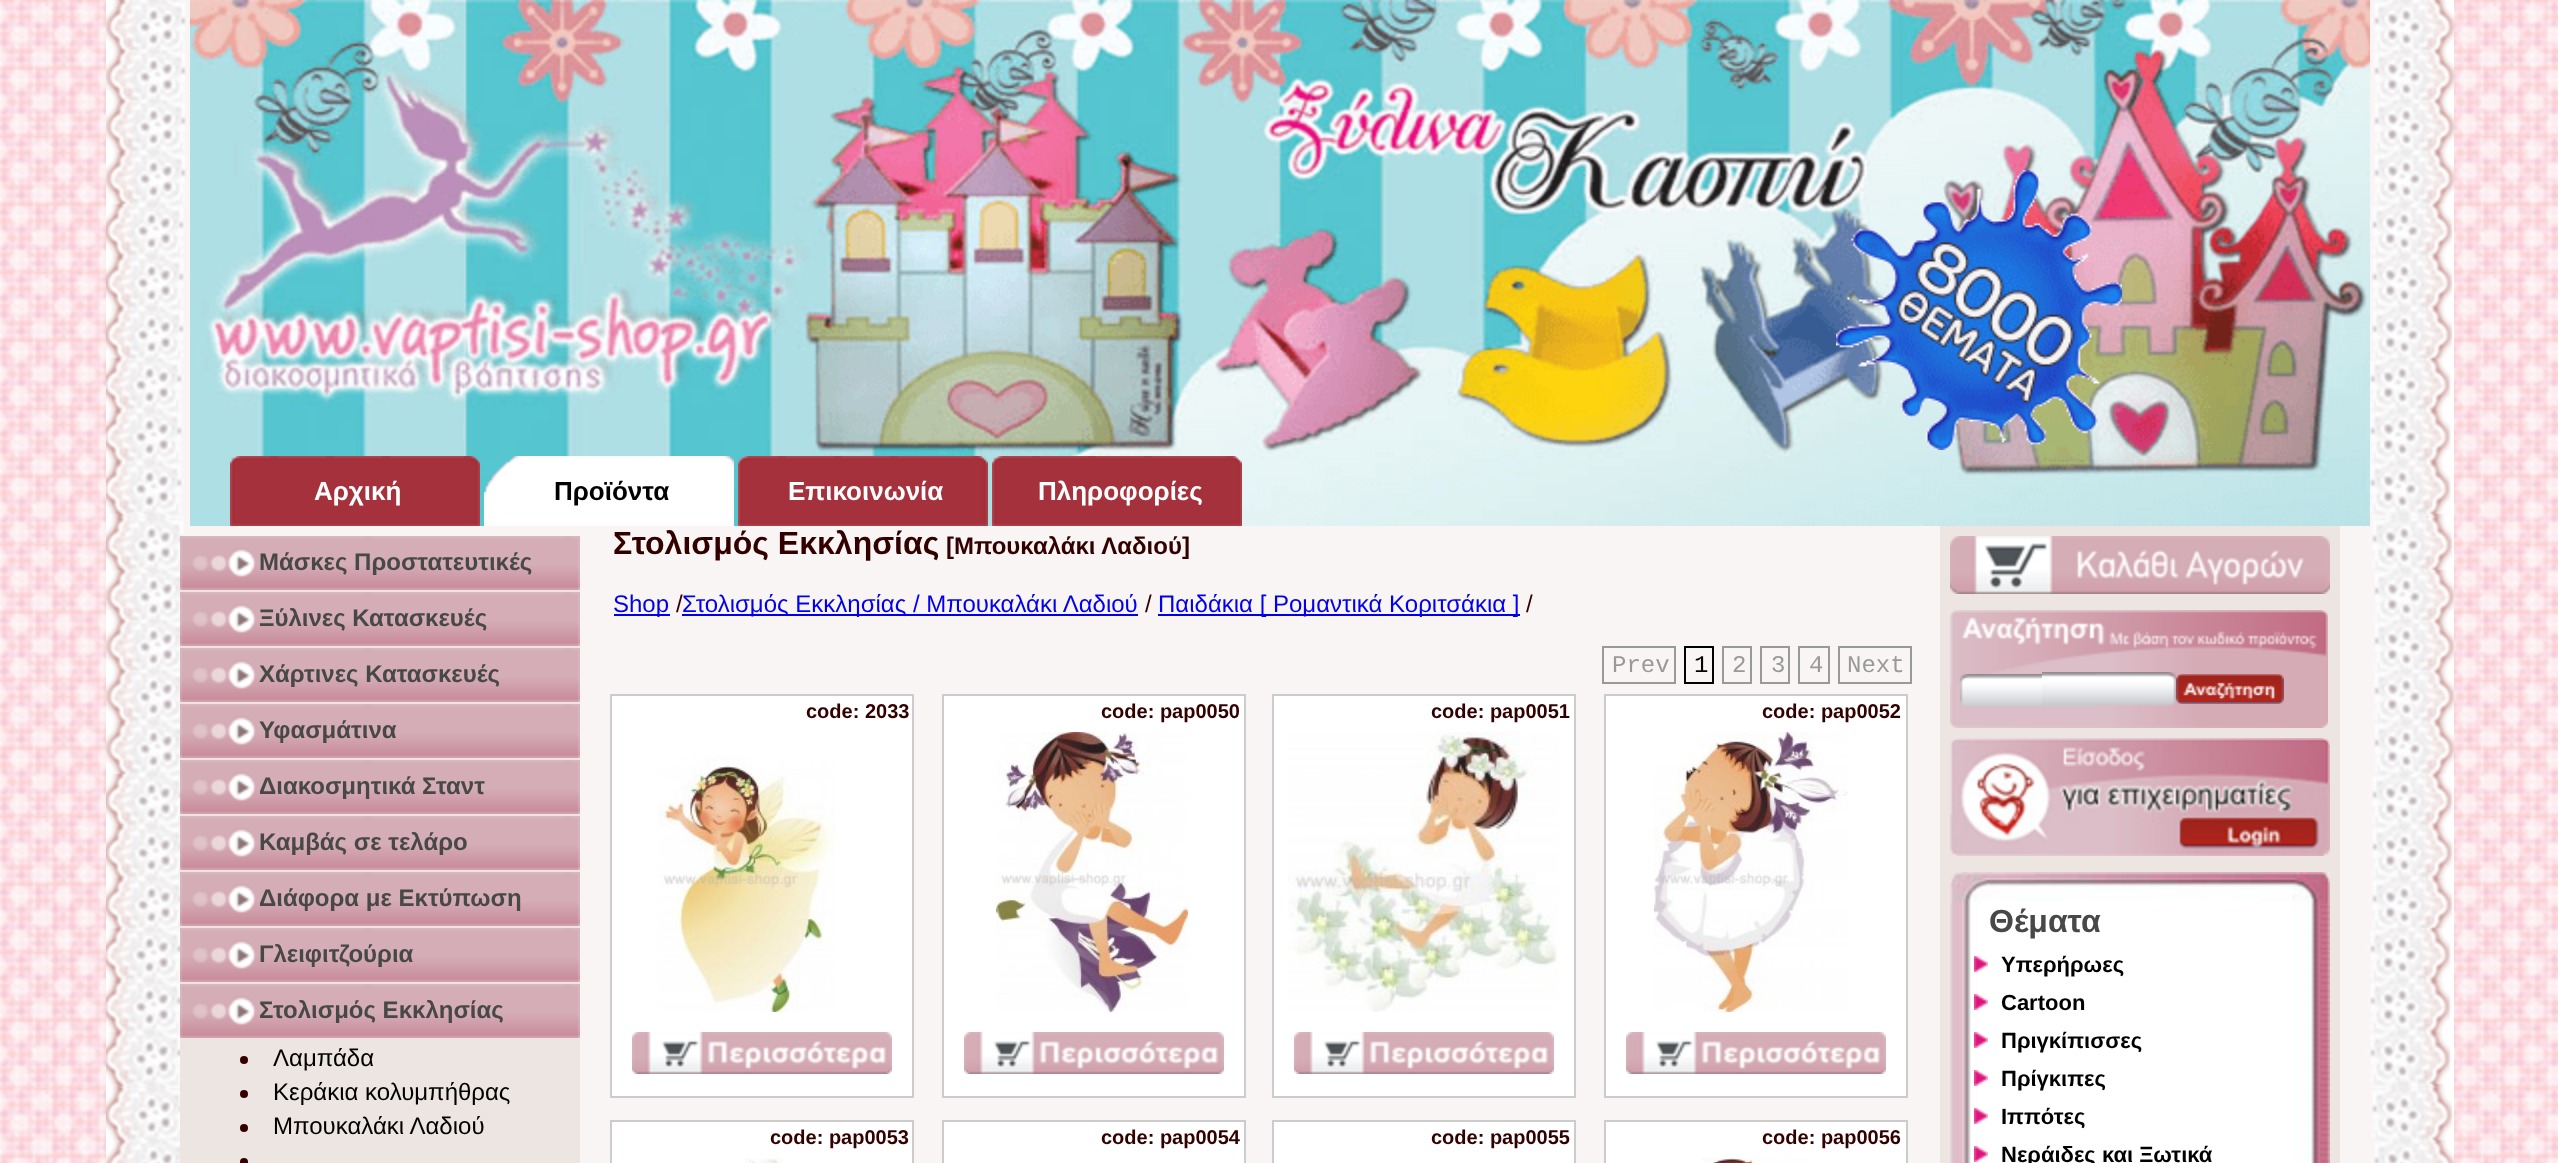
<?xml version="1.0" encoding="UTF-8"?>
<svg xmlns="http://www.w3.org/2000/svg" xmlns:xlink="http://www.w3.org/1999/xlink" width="2558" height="1163">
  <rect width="100%" height="100%" fill="#ffffff" />
  <image x="0" y="0" width="2558" height="1163" xlink:href="image1.png" />
  <image x="106" y="0" width="2348" height="1163" xlink:href="image2.png" />
  <image x="190" y="0" width="2180" height="526" xlink:href="image3.png" />
  <image x="1836" y="170" width="286" height="280" xlink:href="image4.png" />
  <image x="230" y="456" width="250" height="70" xlink:href="image5.png" />
  <image x="484" y="456" width="250" height="70" xlink:href="image6.png" />
  <image x="738" y="456" width="250" height="70" xlink:href="image7.png" />
  <image x="992" y="456" width="250" height="70" xlink:href="image8.png" />
  <rect x="180" y="536" width="400" height="627" fill="#ece5e1" />
  <image x="180" y="536" width="400" height="54" xlink:href="image9.png" />
  <image x="180" y="592" width="400" height="54" xlink:href="image9.png" />
  <image x="180" y="648" width="400" height="54" xlink:href="image9.png" />
  <image x="180" y="704" width="400" height="54" xlink:href="image9.png" />
  <image x="180" y="760" width="400" height="54" xlink:href="image9.png" />
  <image x="180" y="816" width="400" height="54" xlink:href="image9.png" />
  <image x="180" y="872" width="400" height="54" xlink:href="image9.png" />
  <image x="180" y="928" width="400" height="54" xlink:href="image9.png" />
  <image x="180" y="984" width="400" height="54" xlink:href="image9.png" />
  <circle cx="244" cy="1060" r="4" fill="#330000" />
  <circle cx="244" cy="1094" r="4" fill="#330000" />
  <circle cx="244" cy="1128" r="4" fill="#330000" />
  <circle cx="244" cy="1162" r="4" fill="#330000" />
  <rect x="614" y="614" width="56" height="2" fill="#0000ee" />
  <rect x="682" y="614" width="456" height="2" fill="#0000ee" />
  <rect x="1158" y="614" width="362" height="2" fill="#0000ee" />
  <rect x="1603" y="647" width="72" height="36" fill="none" stroke="#999999" stroke-width="2" />
  <rect x="1685" y="647" width="28" height="36" fill="none" stroke="#000000" stroke-width="2" />
  <rect x="1723" y="647" width="28" height="36" fill="none" stroke="#999999" stroke-width="2" />
  <rect x="1761" y="647" width="28" height="36" fill="none" stroke="#999999" stroke-width="2" />
  <rect x="1799" y="647" width="30" height="36" fill="none" stroke="#999999" stroke-width="2" />
  <rect x="1839" y="647" width="72" height="36" fill="none" stroke="#999999" stroke-width="2" />
  <rect x="611" y="695" width="302" height="402" fill="#ffffff" stroke="#cccccc" stroke-width="2" />
  <image x="658" y="756" width="177" height="256" xlink:href="image10.png" />
  <image x="632" y="1032" width="260" height="42" xlink:href="image11.png" />
  <rect x="943" y="695" width="302" height="402" fill="#ffffff" stroke="#cccccc" stroke-width="2" />
  <image x="996" y="732" width="192" height="280" xlink:href="image12.png" />
  <image x="964" y="1032" width="260" height="42" xlink:href="image11.png" />
  <rect x="1273" y="695" width="302" height="402" fill="#ffffff" stroke="#cccccc" stroke-width="2" />
  <image x="1288" y="732" width="270" height="280" xlink:href="image13.png" />
  <image x="1294" y="1032" width="260" height="42" xlink:href="image11.png" />
  <rect x="1605" y="695" width="302" height="402" fill="#ffffff" stroke="#cccccc" stroke-width="2" />
  <image x="1654" y="732" width="194" height="280" xlink:href="image14.png" />
  <image x="1626" y="1032" width="260" height="42" xlink:href="image11.png" />
  <rect x="611" y="1121" width="302" height="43" fill="#ffffff" stroke="#cccccc" stroke-width="2" />
  <image x="745" y="1158" width="38" height="5" xlink:href="image15.png" />
  <rect x="943" y="1121" width="302" height="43" fill="#ffffff" stroke="#cccccc" stroke-width="2" />
  <rect x="1273" y="1121" width="302" height="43" fill="#ffffff" stroke="#cccccc" stroke-width="2" />
  <rect x="1605" y="1121" width="302" height="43" fill="#ffffff" stroke="#cccccc" stroke-width="2" />
  <image x="1701" y="1158" width="110" height="5" xlink:href="image16.png" />
  <rect x="1940" y="526" width="400" height="637" fill="#ece5e1" />
  <image x="1950" y="536" width="380" height="58" xlink:href="image17.png" />
  <image x="1950" y="610" width="378" height="118" xlink:href="image18.png" />
  <image x="1960" y="674" width="136" height="34" xlink:href="image19.png" />
  <image x="2042" y="672" width="134" height="34" xlink:href="image20.png" />
  <image x="2176" y="674" width="108" height="30" xlink:href="image21.png" />
  <image x="1950" y="738" width="380" height="118" xlink:href="image22.png" />
  <image x="1950" y="872" width="380" height="32" xlink:href="image23.png" />
  <image x="1950" y="904" width="380" height="46" xlink:href="image24.png" />
  <image x="1950" y="950" width="380" height="38" xlink:href="image25.png" />
  <image x="1974" y="956" width="14" height="16" xlink:href="image26.png" />
  <image x="1950" y="988" width="380" height="38" xlink:href="image25.png" />
  <image x="1974" y="994" width="14" height="16" xlink:href="image26.png" />
  <image x="1950" y="1026" width="380" height="38" xlink:href="image25.png" />
  <image x="1974" y="1032" width="14" height="16" xlink:href="image26.png" />
  <image x="1950" y="1064" width="380" height="38" xlink:href="image25.png" />
  <image x="1974" y="1070" width="14" height="16" xlink:href="image26.png" />
  <image x="1950" y="1102" width="380" height="38" xlink:href="image25.png" />
  <image x="1974" y="1108" width="14" height="16" xlink:href="image26.png" />
  <image x="1950" y="1140" width="380" height="23" xlink:href="image27.png" />
  <image x="1974" y="1146" width="14" height="16" xlink:href="image26.png" />
  <text x="314" y="500" style="font-family: Liberation Sans; font-size: 26px; font-weight: bold; fill: #ffffff">Αρχική</text>
  <text x="554" y="500" style="font-family: Liberation Sans; font-size: 26px; font-weight: bold; fill: #000000">Προϊόντα</text>
  <text x="788" y="500" style="font-family: Liberation Sans; font-size: 26px; font-weight: bold; fill: #ffffff">Επικοινωνία</text>
  <text x="1038" y="500" style="font-family: Liberation Sans; font-size: 26px; font-weight: bold; fill: #ffffff">Πληροφορίες</text>
  <text x="259" y="570" style="font-family: Liberation Sans; font-size: 24px; font-weight: bold; fill: #484848">Μάσκες Προστατευτικές</text>
  <text x="259" y="626" style="font-family: Liberation Sans; font-size: 24px; font-weight: bold; fill: #484848">Ξύλινες Κατασκευές</text>
  <text x="259" y="682" style="font-family: Liberation Sans; font-size: 24px; font-weight: bold; fill: #484848">Χάρτινες Κατασκευές</text>
  <text x="259" y="738" style="font-family: Liberation Sans; font-size: 24px; font-weight: bold; fill: #484848">Υφασμάτινα</text>
  <text x="259" y="794" style="font-family: Liberation Sans; font-size: 24px; font-weight: bold; fill: #484848">Διακοσμητικά Σταντ</text>
  <text x="259" y="850" style="font-family: Liberation Sans; font-size: 24px; font-weight: bold; fill: #484848">Καμβάς σε τελάρο</text>
  <text x="259" y="906" style="font-family: Liberation Sans; font-size: 24px; font-weight: bold; fill: #484848">Διάφορα με Εκτύπωση</text>
  <text x="259" y="962" style="font-family: Liberation Sans; font-size: 24px; font-weight: bold; fill: #484848">Γλειφιτζούρια</text>
  <text x="259" y="1018" style="font-family: Liberation Sans; font-size: 24px; font-weight: bold; fill: #484848">Στολισμός Εκκλησίας</text>
  <text x="273" y="1066" style="font-family: Liberation Sans; font-size: 24px; fill: #000000">Λαμπάδα</text>
  <text x="273" y="1100" style="font-family: Liberation Sans; font-size: 24px; fill: #000000">Κεράκια κολυμπήθρας</text>
  <text x="273" y="1134" style="font-family: Liberation Sans; font-size: 24px; fill: #000000">Μπουκαλάκι Λαδιού</text>
  <text x="613" y="554" style="font-family: Liberation Sans; font-size: 32px; font-weight: bold; fill: #330000">Στολισμός Εκκλησίας</text>
  <text x="946" y="554" style="font-family: Liberation Sans; font-size: 24px; font-weight: bold; fill: #330000">[Μπουκαλάκι Λαδιού]</text>
  <text x="613" y="612" style="font-family: Liberation Sans; font-size: 24px; fill: #0000ee">Shop</text>
  <text x="676" y="612" style="font-family: Liberation Sans; font-size: 24px; fill: #330000">/</text>
  <text x="682" y="612" style="font-family: Liberation Sans; font-size: 24px; fill: #0000ee">Στολισμός Εκκλησίας / Μπουκαλάκι Λαδιού</text>
  <text x="1145" y="612" style="font-family: Liberation Sans; font-size: 24px; fill: #330000">/</text>
  <text x="1158" y="612" style="font-family: Liberation Sans; font-size: 24px; fill: #0000ee">Παιδάκια [ Ρομαντικά Κοριτσάκια ]</text>
  <text x="1526" y="612" style="font-family: Liberation Sans; font-size: 24px; fill: #330000">/</text>
  <text x="1612" y="672" style="font-family: Liberation Mono; font-size: 24px; fill: #999999">Prev</text>
  <text x="1694" y="672" style="font-family: Liberation Mono; font-size: 24px; fill: #000000">1</text>
  <text x="1732" y="672" style="font-family: Liberation Mono; font-size: 24px; fill: #999999">2</text>
  <text x="1771" y="672" style="font-family: Liberation Mono; font-size: 24px; fill: #999999">3</text>
  <text x="1809" y="672" style="font-family: Liberation Mono; font-size: 24px; fill: #999999">4</text>
  <text x="1847" y="672" style="font-family: Liberation Mono; font-size: 24px; fill: #999999">Next</text>
  <text x="806" y="718" style="font-family: Liberation Sans; font-size: 20px; font-weight: bold; fill: #330000">code: 2033</text>
  <text x="1101" y="718" style="font-family: Liberation Sans; font-size: 20px; font-weight: bold; fill: #330000">code: pap0050</text>
  <text x="1431" y="718" style="font-family: Liberation Sans; font-size: 20px; font-weight: bold; fill: #330000">code: pap0051</text>
  <text x="1762" y="718" style="font-family: Liberation Sans; font-size: 20px; font-weight: bold; fill: #330000">code: pap0052</text>
  <text x="770" y="1144" style="font-family: Liberation Sans; font-size: 20px; font-weight: bold; fill: #330000">code: pap0053</text>
  <text x="1101" y="1144" style="font-family: Liberation Sans; font-size: 20px; font-weight: bold; fill: #330000">code: pap0054</text>
  <text x="1431" y="1144" style="font-family: Liberation Sans; font-size: 20px; font-weight: bold; fill: #330000">code: pap0055</text>
  <text x="1762" y="1144" style="font-family: Liberation Sans; font-size: 20px; font-weight: bold; fill: #330000">code: pap0056</text>
  <text x="1989" y="932" style="font-family: Liberation Sans; font-size: 32px; font-weight: bold; fill: #484848">Θέματα</text>
  <text x="2001" y="972" style="font-family: Liberation Sans; font-size: 22px; font-weight: bold; fill: #000000">Υπερήρωες</text>
  <text x="2001" y="1010" style="font-family: Liberation Sans; font-size: 22px; font-weight: bold; fill: #000000">Cartoon</text>
  <text x="2001" y="1048" style="font-family: Liberation Sans; font-size: 22px; font-weight: bold; fill: #000000">Πριγκίπισσες</text>
  <text x="2001" y="1086" style="font-family: Liberation Sans; font-size: 22px; font-weight: bold; fill: #000000">Πρίγκιπες</text>
  <text x="2001" y="1124" style="font-family: Liberation Sans; font-size: 22px; font-weight: bold; fill: #000000">Ιππότες</text>
  <text x="2001" y="1162" style="font-family: Liberation Sans; font-size: 22px; font-weight: bold; fill: #000000">Νεράιδες και Ξωτικά</text>
</svg>
